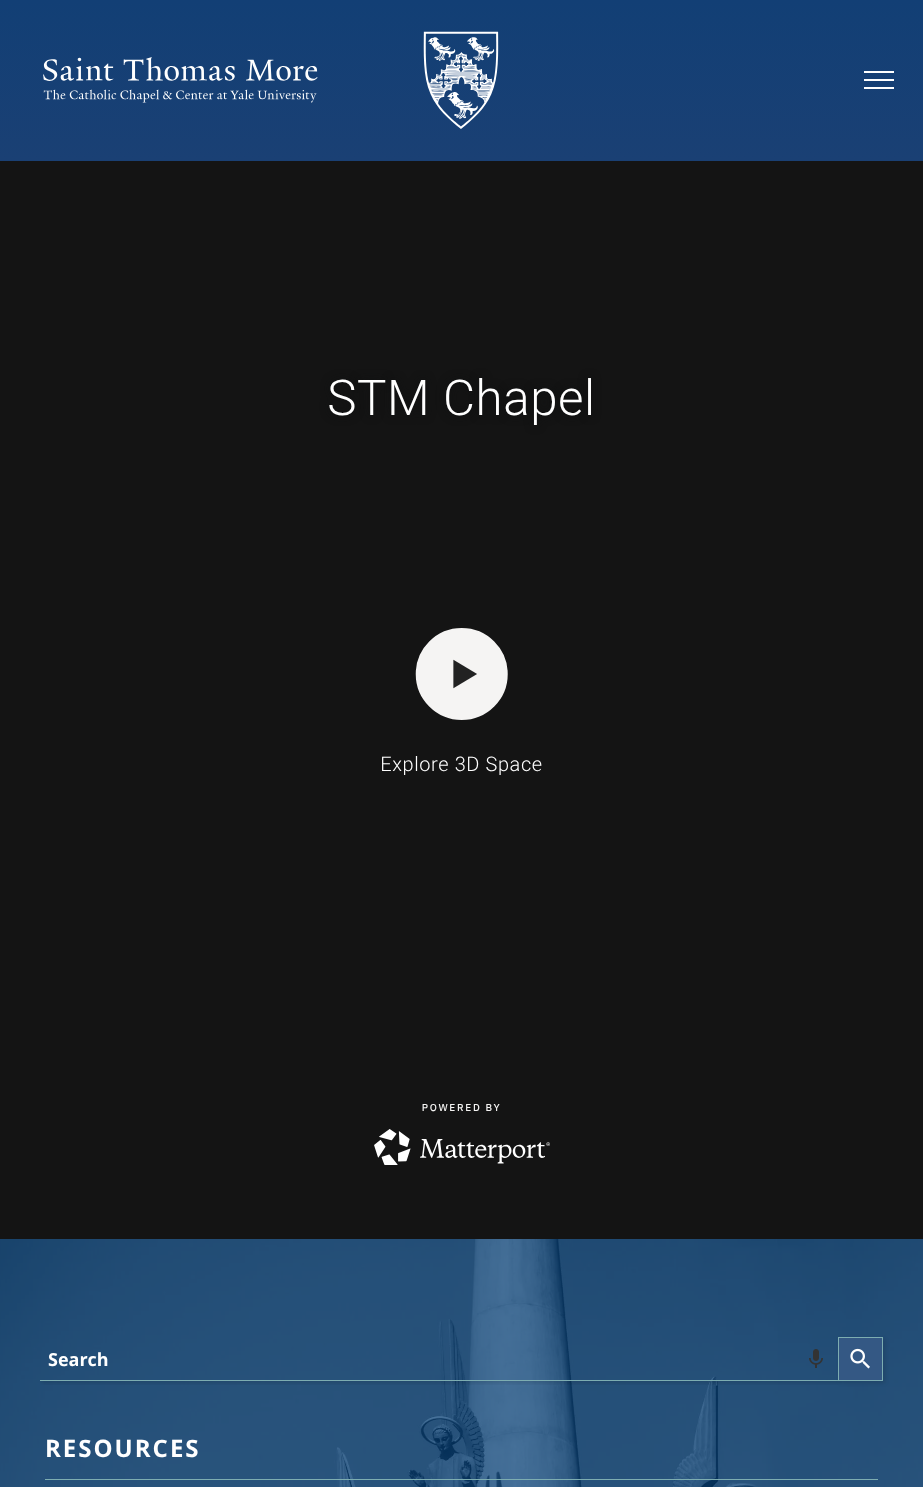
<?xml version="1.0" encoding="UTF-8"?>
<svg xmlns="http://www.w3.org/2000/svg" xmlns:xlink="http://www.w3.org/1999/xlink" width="923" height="1487">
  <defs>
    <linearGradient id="g1" gradientUnits="userSpaceOnUse" x1="462" y1="161" x2="462" y2="0"><stop offset="0" stop-color="#1a4074" /><stop offset="1" stop-color="#123f75" /></linearGradient>
    <clipPath id="clip1"><rect x="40" y="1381" width="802" height="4" /></clipPath>
  </defs>
  <rect width="100%" height="100%" fill="#ffffff" />
  <rect width="923" height="161" fill="url(#g1)" />
  <image x="43" y="57" width="275" height="46" xlink:href="image1.png" />
  <image x="423" y="31" width="76" height="98" xlink:href="image2.png" />
  <rect x="864" y="71" width="30" height="2" fill="#ffffff" />
  <rect x="864" y="79" width="30" height="2" fill="#ffffff" />
  <rect x="864" y="87" width="30" height="2" fill="#ffffff" />
  <image x="0" y="161" width="923" height="1078" xlink:href="image3.png" />
  <image x="0" y="1239" width="923" height="248" xlink:href="image4.png" />
  <g clip-path="url(#clip1)">
    <rect x="42" y="1339" width="798" height="44" fill="#000000" fill-opacity="0.12" filter="blur(2px)" />
  </g>
  <rect x="40" y="1380" width="798" height="1" fill="#7dadb1" />
  <image x="809" y="1349" width="14" height="19" xlink:href="image5.png" />
  <rect x="840" y="1339" width="45" height="44" fill="#000000" fill-opacity="0.12" filter="blur(2px)" />
  <rect x="838.5" y="1337.5" width="44" height="43" fill="#345884" stroke="#7dadb1" />
  <image x="850" y="1348" width="20" height="21" xlink:href="image6.png" />
  <rect x="45" y="1479" width="833" height="1" fill="#7dadb1" />
  <text x="48" y="1366" style="font-family: Open Sans; font-size: 18px; font-weight: bold; fill: #ffffff">Search</text>
  <text x="45" y="1457" style="font-family: 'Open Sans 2'; font-size: 24px; font-weight: bold; letter-spacing: 2px; fill: #ffffff">RESOURCES</text>
</svg>
